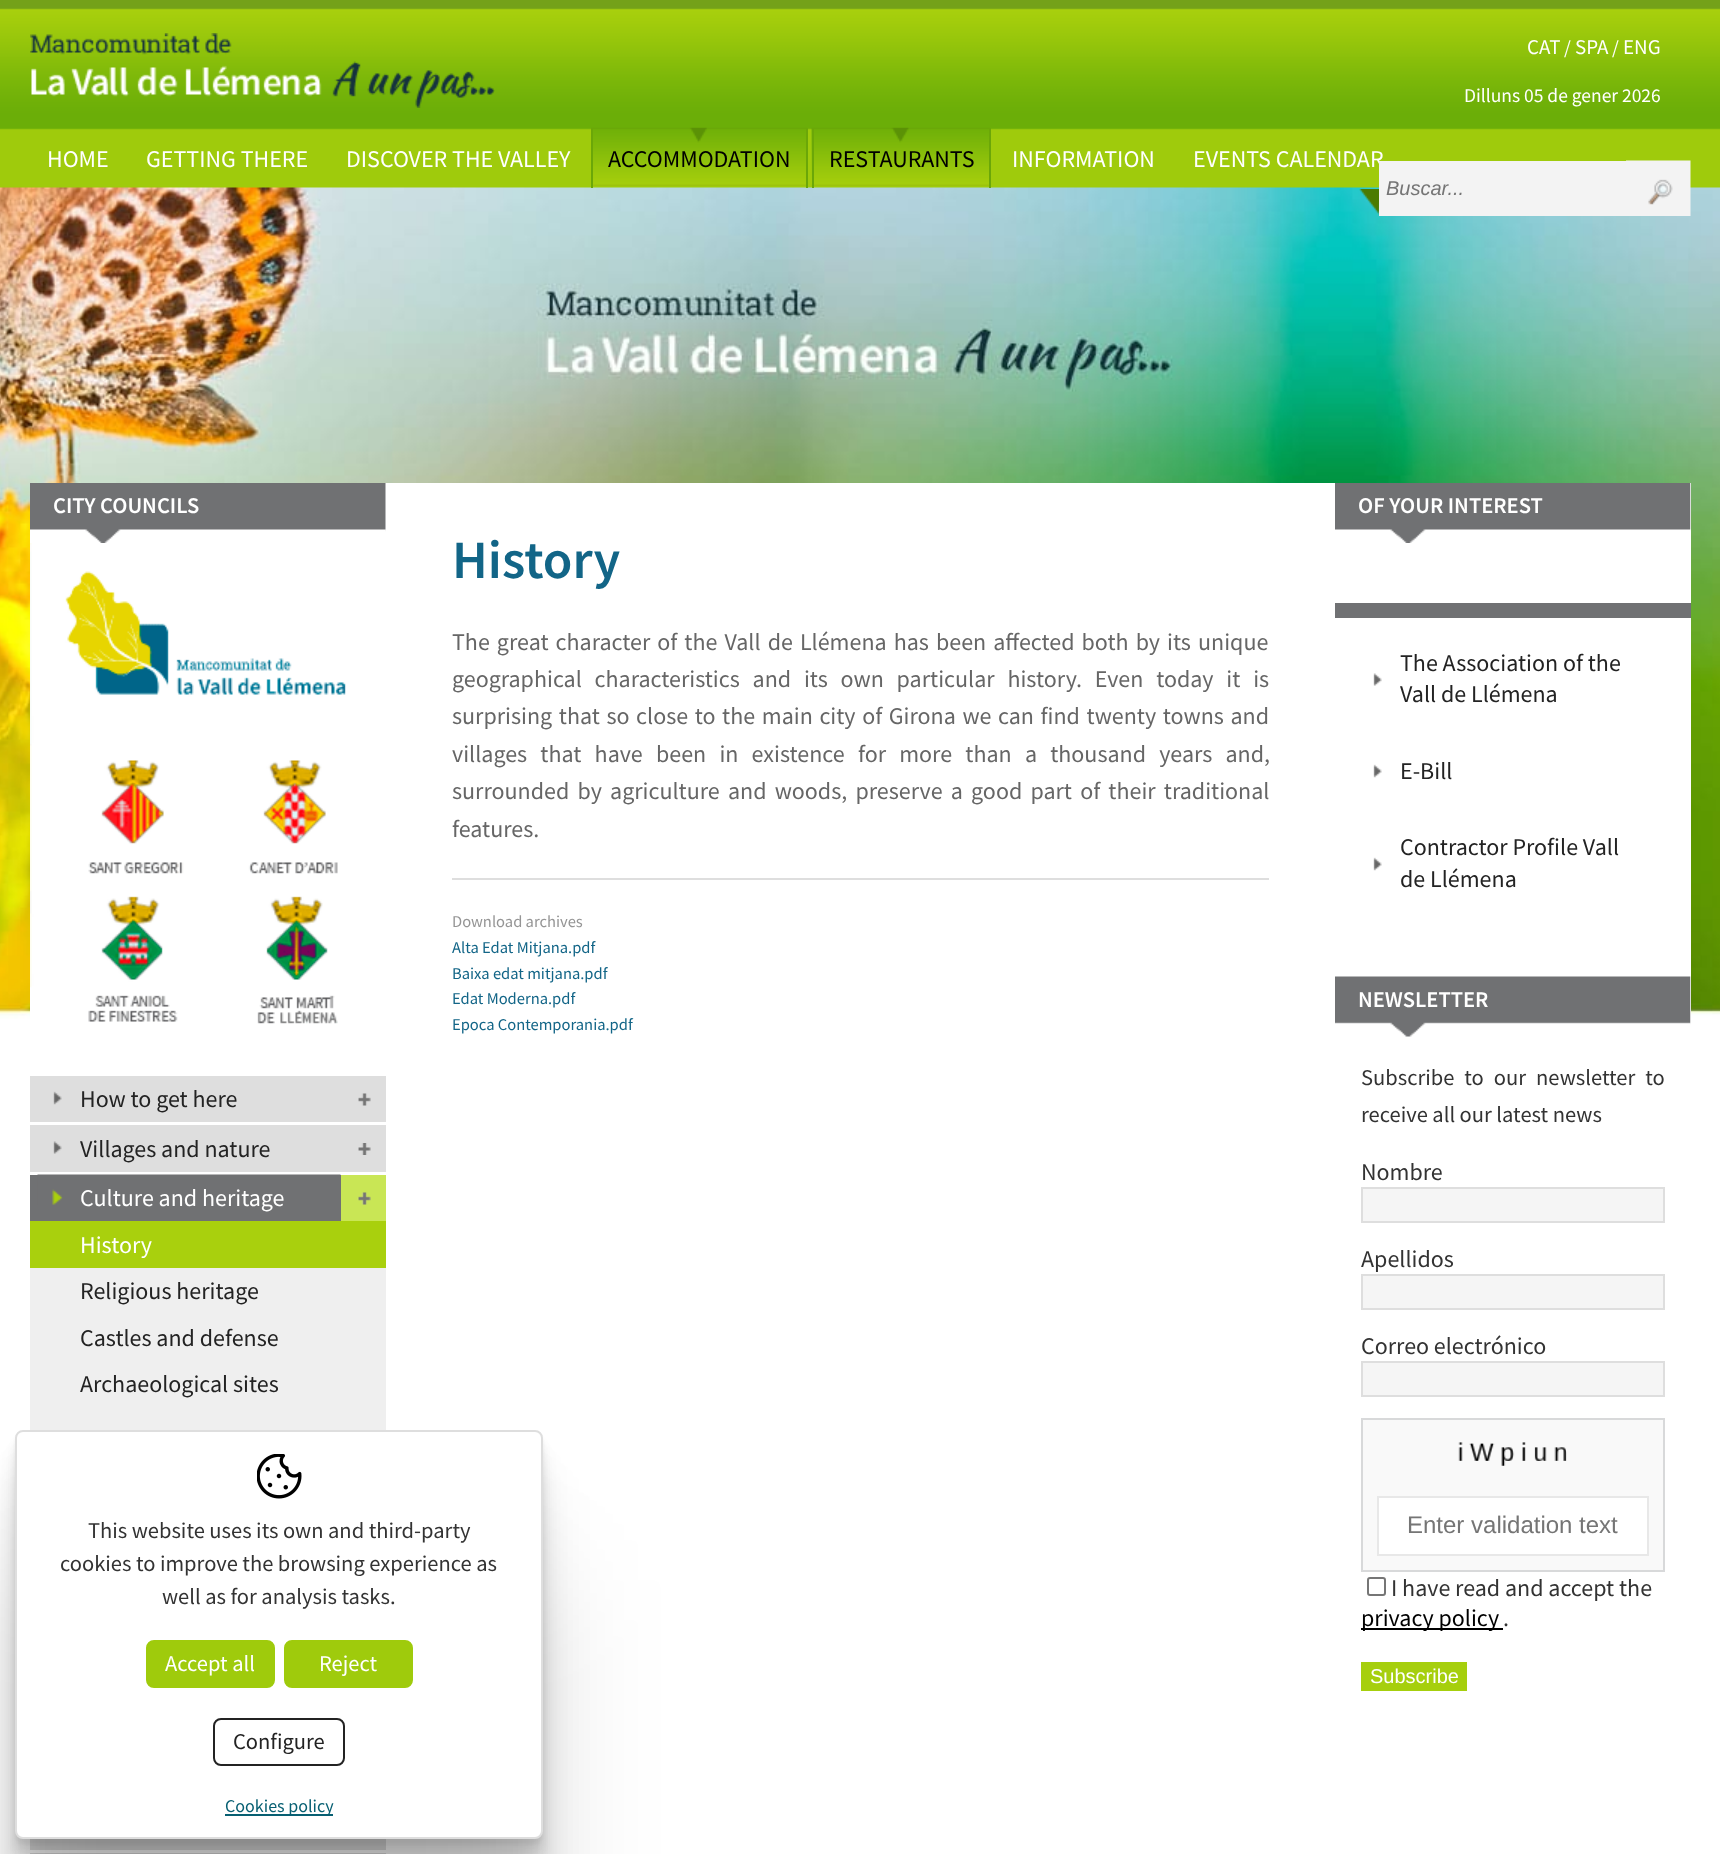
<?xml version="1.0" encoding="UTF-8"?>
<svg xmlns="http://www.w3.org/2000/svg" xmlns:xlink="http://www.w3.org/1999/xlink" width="1720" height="1854">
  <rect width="100%" height="100%" fill="#ffffff" />
  <image x="0" y="0" width="1720" height="188" xlink:href="image1.png" />
  <image x="30" y="33" width="465" height="75" xlink:href="image2.png" />
  <image x="591" y="127" width="216" height="59" xlink:href="image3.png" />
  <image x="0" y="187" width="1720" height="832" xlink:href="image7.png" />
  <rect x="806" y="128" width="2" height="60" fill="#6ba708" />
  <rect x="591" y="128" width="2" height="60" fill="#6ba708" />
  <image x="811" y="127" width="179" height="59" xlink:href="image4.png" />
  <rect x="989" y="128" width="2" height="60" fill="#6ba708" />
  <rect x="812" y="128" width="2" height="60" fill="#6ba708" />
  <image x="1359" y="189" width="20" height="26" xlink:href="image5.png" />
  <image x="1626" y="160" width="65" height="56" xlink:href="image6.png" />
  <rect x="30" y="483" width="1661" height="536" fill="#ffffff" />
  <image x="30" y="483" width="356" height="60" xlink:href="image8.png" />
  <image x="30" y="543" width="316" height="481" xlink:href="image9.png" />
  <rect x="30" y="1076" width="356" height="46" fill="#dedede" />
  <image x="53" y="1091" width="9" height="14" xlink:href="image10.png" />
  <image x="358" y="1093" width="13" height="13" xlink:href="image11.png" />
  <rect x="30" y="1125" width="356" height="47" fill="#dedede" />
  <image x="53" y="1141" width="9" height="13" xlink:href="image12.png" />
  <image x="358" y="1143" width="13" height="12" xlink:href="image13.png" />
  <rect x="30" y="1175" width="311" height="46" fill="#707173" />
  <image x="37" y="1174" width="304" height="31" xlink:href="image14.png" />
  <rect x="341" y="1175" width="45" height="46" fill="#c9e655" />
  <image x="357" y="1192" width="14" height="13" xlink:href="image15.png" />
  <rect x="30" y="1268" width="356" height="162" fill="#efefef" />
  <rect x="30" y="1221" width="356" height="47" fill="#a9d00d" />
  <rect x="30" y="1839" width="356" height="11" fill="#dedede" />
  <rect x="30" y="1853" width="356" height="1" fill="#dedede" />
  <rect x="452" y="878" width="817" height="2" fill="#dedede" />
  <image x="1335" y="483" width="356" height="60" xlink:href="image16.png" />
  <rect x="1335" y="603" width="356" height="15" fill="#707173" />
  <image x="1373" y="673" width="9" height="13" xlink:href="image17.png" />
  <image x="1373" y="764" width="9" height="14" xlink:href="image18.png" />
  <image x="1373" y="857" width="9" height="14" xlink:href="image18.png" />
  <image x="1335" y="976" width="356" height="61" xlink:href="image19.png" />
  <rect x="1362" y="1188" width="302" height="34" fill="#f5f5f5" stroke="#dedede" stroke-width="2" />
  <rect x="1362" y="1275" width="302" height="34" fill="#f5f5f5" stroke="#dedede" stroke-width="2" />
  <rect x="1362" y="1362" width="302" height="34" fill="#f5f5f5" stroke="#dedede" stroke-width="2" />
  <rect x="1362" y="1419" width="302" height="152" fill="#f9f9f9" stroke="#d8d9da" stroke-width="2" />
  <image x="1458" y="1442" width="109" height="24" xlink:href="image20.png" />
  <rect x="1378" y="1497" width="270" height="58" fill="#ffffff" stroke="#e8e8e8" stroke-width="2" />
  <rect x="1368" y="1578" width="17" height="17" rx="2" fill="none" stroke="#767676" stroke-width="2" />
  <rect x="1361" y="1628" width="142" height="2" fill="#000000" />
  <rect x="1361" y="1662" width="106" height="29" fill="#a6cf0d" />
  <rect x="15" y="1580" width="528" height="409" rx="8" fill="#000000" fill-opacity="0.12" filter="blur(60px)" />
  <rect x="15" y="1493" width="528" height="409" rx="8" fill="#000000" fill-opacity="0.09" filter="blur(25px)" />
  <rect x="15" y="1463" width="528" height="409" rx="8" fill="#000000" fill-opacity="0.07" filter="blur(13.5px)" />
  <rect x="15" y="1449" width="528" height="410" rx="8" fill="#000000" fill-opacity="0.06" filter="blur(7.5px)" />
  <rect x="15" y="1440" width="528" height="410" rx="8" fill="#000000" fill-opacity="0.05" filter="blur(4px)" />
  <rect x="15" y="1434" width="528" height="410" rx="8" fill="#000000" fill-opacity="0.04" filter="blur(1.5px)" />
  <rect x="16" y="1431" width="526" height="407" rx="7" fill="#ffffff" stroke="#dedede" stroke-width="2" />
  <image x="257" y="1454" width="45" height="45" xlink:href="image21.png" />
  <rect x="147" y="1641" width="127" height="46" rx="7" fill="#9fcb0c" stroke="#9fcb0c" stroke-width="2" />
  <rect x="285" y="1641" width="127" height="46" rx="7" fill="#9fcb0c" stroke="#9fcb0c" stroke-width="2" />
  <rect x="214" y="1719" width="130" height="46" rx="7" fill="none" stroke="#232323" stroke-width="2" />
  <rect x="225" y="1814" width="108" height="2" fill="#075f72" />
  <text x="1527" y="54" style="font-family: Source Sans Pro; font-size: 21px; fill: #ffffff">CAT</text>
  <text x="1564" y="54" style="font-family: Source Sans Pro; font-size: 19.5px; fill: #ffffff">/</text>
  <text x="1575" y="54" style="font-family: Source Sans Pro; font-size: 21px; fill: #ffffff">SPA</text>
  <text x="1612" y="54" style="font-family: Source Sans Pro; font-size: 19.5px; fill: #ffffff">/</text>
  <text x="1623" y="54" style="font-family: Source Sans Pro; font-size: 21px; fill: #ffffff">ENG</text>
  <text x="1464" y="102" style="font-family: Source Sans Pro; font-size: 19.5px; fill: #ffffff">Dilluns 05 de gener 2026</text>
  <text x="47" y="167" style="font-family: Source Sans Pro; font-size: 24px; fill: #ffffff">HOME</text>
  <text x="146" y="167" style="font-family: Source Sans Pro; font-size: 24px; fill: #ffffff">GETTING THERE</text>
  <text x="346" y="167" style="font-family: Source Sans Pro; font-size: 24px; fill: #ffffff">DISCOVER THE VALLEY</text>
  <text x="608" y="167" style="font-family: Source Sans Pro; font-size: 24px; fill: #000000">ACCOMMODATION</text>
  <text x="829" y="167" style="font-family: Source Sans Pro; font-size: 24px; fill: #000000">RESTAURANTS</text>
  <text x="1012" y="167" style="font-family: Source Sans Pro; font-size: 24px; fill: #ffffff">INFORMATION</text>
  <text x="1193" y="167" style="font-family: Source Sans Pro; font-size: 24px; fill: #ffffff">EVENTS CALENDAR</text>
  <rect x="1379" y="161" width="247" height="55" fill="#f3f3f3" />
  <text x="1386" y="195" style="font-family: Liberation Sans; font-size: 20px; font-style: italic; fill: #757575">Buscar...</text>
  <text x="53" y="513" style="font-family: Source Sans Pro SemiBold; font-size: 22.5px; font-weight: 600; fill: #ffffff">CITY COUNCILS</text>
  <text x="80" y="1107" style="font-family: Source Sans Pro; font-size: 24px; fill: #232323">How to get here</text>
  <text x="80" y="1157" style="font-family: Source Sans Pro; font-size: 24px; fill: #232323">Villages and nature</text>
  <text x="80" y="1206" style="font-family: Source Sans Pro; font-size: 24px; fill: #ffffff">Culture and heritage</text>
  <text x="80" y="1253" style="font-family: Source Sans Pro; font-size: 24px; fill: #ffffff">History</text>
  <text x="80" y="1299" style="font-family: Source Sans Pro; font-size: 24px; fill: #232323">Religious heritage</text>
  <text x="80" y="1346" style="font-family: Source Sans Pro; font-size: 24px; fill: #232323">Castles and defense</text>
  <text x="80" y="1392" style="font-family: Source Sans Pro; font-size: 24px; fill: #232323">Archaeological sites</text>
  <text x="452" y="578" style="font-family: Source Sans Pro SemiBold; font-size: 54px; font-weight: 600; fill: #126587">History</text>
  <text x="452" y="650" word-spacing="2.25" style="font-family: Source Sans Pro; font-size: 24px; fill: #666666">The great character of the Vall de Llémena has been affected both by its unique</text>
  <text x="452" y="687" word-spacing="8" style="font-family: Source Sans Pro; font-size: 24px; fill: #666666">geographical characteristics and its own particular history. Even today it is</text>
  <text x="452" y="724" word-spacing="1.8" style="font-family: Source Sans Pro; font-size: 24px; fill: #666666">surprising that so close to the main city of Girona we can find twenty towns and</text>
  <text x="452" y="762" word-spacing="8.4" style="font-family: Source Sans Pro; font-size: 24px; fill: #666666">villages that have been in existence for more than a thousand years and,</text>
  <text x="452" y="799" word-spacing="3.4" style="font-family: Source Sans Pro; font-size: 24px; fill: #666666">surrounded by agriculture and woods, preserve a good part of their traditional</text>
  <text x="452" y="837" style="font-family: Source Sans Pro; font-size: 24px; fill: #666666">features.</text>
  <text x="452" y="927" style="font-family: Source Sans Pro; font-size: 16.5px; fill: #959595">Download archives</text>
  <text x="452" y="953" style="font-family: Source Sans Pro; font-size: 16.5px; fill: #126587">Alta Edat Mitjana.pdf</text>
  <text x="452" y="979" style="font-family: Source Sans Pro; font-size: 16.5px; fill: #126587">Baixa edat mitjana.pdf</text>
  <text x="452" y="1004" style="font-family: Source Sans Pro; font-size: 16.5px; fill: #126587">Edat Moderna.pdf</text>
  <text x="452" y="1030" style="font-family: Source Sans Pro; font-size: 16.5px; fill: #126587">Epoca Contemporania.pdf</text>
  <text x="1358" y="513" style="font-family: Source Sans Pro SemiBold; font-size: 22.5px; font-weight: 600; fill: #ffffff">OF YOUR INTEREST</text>
  <text x="1400" y="671" style="font-family: Source Sans Pro; font-size: 24px; fill: #232323">The Association of the</text>
  <text x="1400" y="702" style="font-family: Source Sans Pro; font-size: 24px; fill: #232323">Vall de Llémena</text>
  <text x="1400" y="779" style="font-family: Source Sans Pro; font-size: 24px; fill: #232323">E-Bill</text>
  <text x="1400" y="855" style="font-family: Source Sans Pro; font-size: 24px; fill: #232323">Contractor Profile Vall</text>
  <text x="1400" y="887" style="font-family: Source Sans Pro; font-size: 24px; fill: #232323">de Llémena</text>
  <text x="1358" y="1007" style="font-family: Source Sans Pro SemiBold; font-size: 22.5px; font-weight: 600; fill: #ffffff">NEWSLETTER</text>
  <text x="1361" y="1085" word-spacing="5.5" style="font-family: Source Sans Pro; font-size: 22.5px; fill: #333333">Subscribe to our newsletter to</text>
  <text x="1361" y="1122" style="font-family: Source Sans Pro; font-size: 22.5px; fill: #333333">receive all our latest news</text>
  <text x="1361" y="1180" style="font-family: Source Sans Pro; font-size: 24px; fill: #333333">Nombre</text>
  <text x="1361" y="1267" style="font-family: Source Sans Pro; font-size: 24px; fill: #333333">Apellidos</text>
  <text x="1361" y="1354" style="font-family: Source Sans Pro; font-size: 24px; fill: #333333">Correo electrónico</text>
  <text x="1407" y="1533" style="font-family: Liberation Sans; font-size: 24px; fill: #757575">Enter validation text</text>
  <text x="1391" y="1596" style="font-family: Source Sans Pro; font-size: 24px; fill: #333333">I have read and accept the</text>
  <text x="1361" y="1626" style="font-family: Source Sans Pro; font-size: 24px; fill: #000000">privacy policy</text>
  <text x="1503" y="1626" style="font-family: Source Sans Pro; font-size: 24px; fill: #333333">.</text>
  <text x="1370" y="1683" style="font-family: Liberation Sans; font-size: 20px; fill: #ffffff">Subscribe</text>
  <text x="88" y="1538" style="font-family: Source Sans Pro; font-size: 22.5px; fill: #333333">This website uses its own and third-party</text>
  <text x="60" y="1571" style="font-family: Source Sans Pro; font-size: 22.5px; fill: #333333">cookies to improve the browsing experience as</text>
  <text x="162" y="1604" style="font-family: Source Sans Pro; font-size: 22.5px; fill: #333333">well as for analysis tasks.</text>
  <text x="165" y="1671" style="font-family: Source Sans Pro; font-size: 22.5px; fill: #ffffff">Accept all</text>
  <text x="319" y="1671" style="font-family: Source Sans Pro; font-size: 22.5px; fill: #ffffff">Reject</text>
  <text x="233" y="1749" style="font-family: Source Sans Pro; font-size: 22.5px; fill: #232323">Configure</text>
  <text x="225" y="1812" style="font-family: Source Sans Pro; font-size: 18px; fill: #075f72">Cookies policy</text>
</svg>
